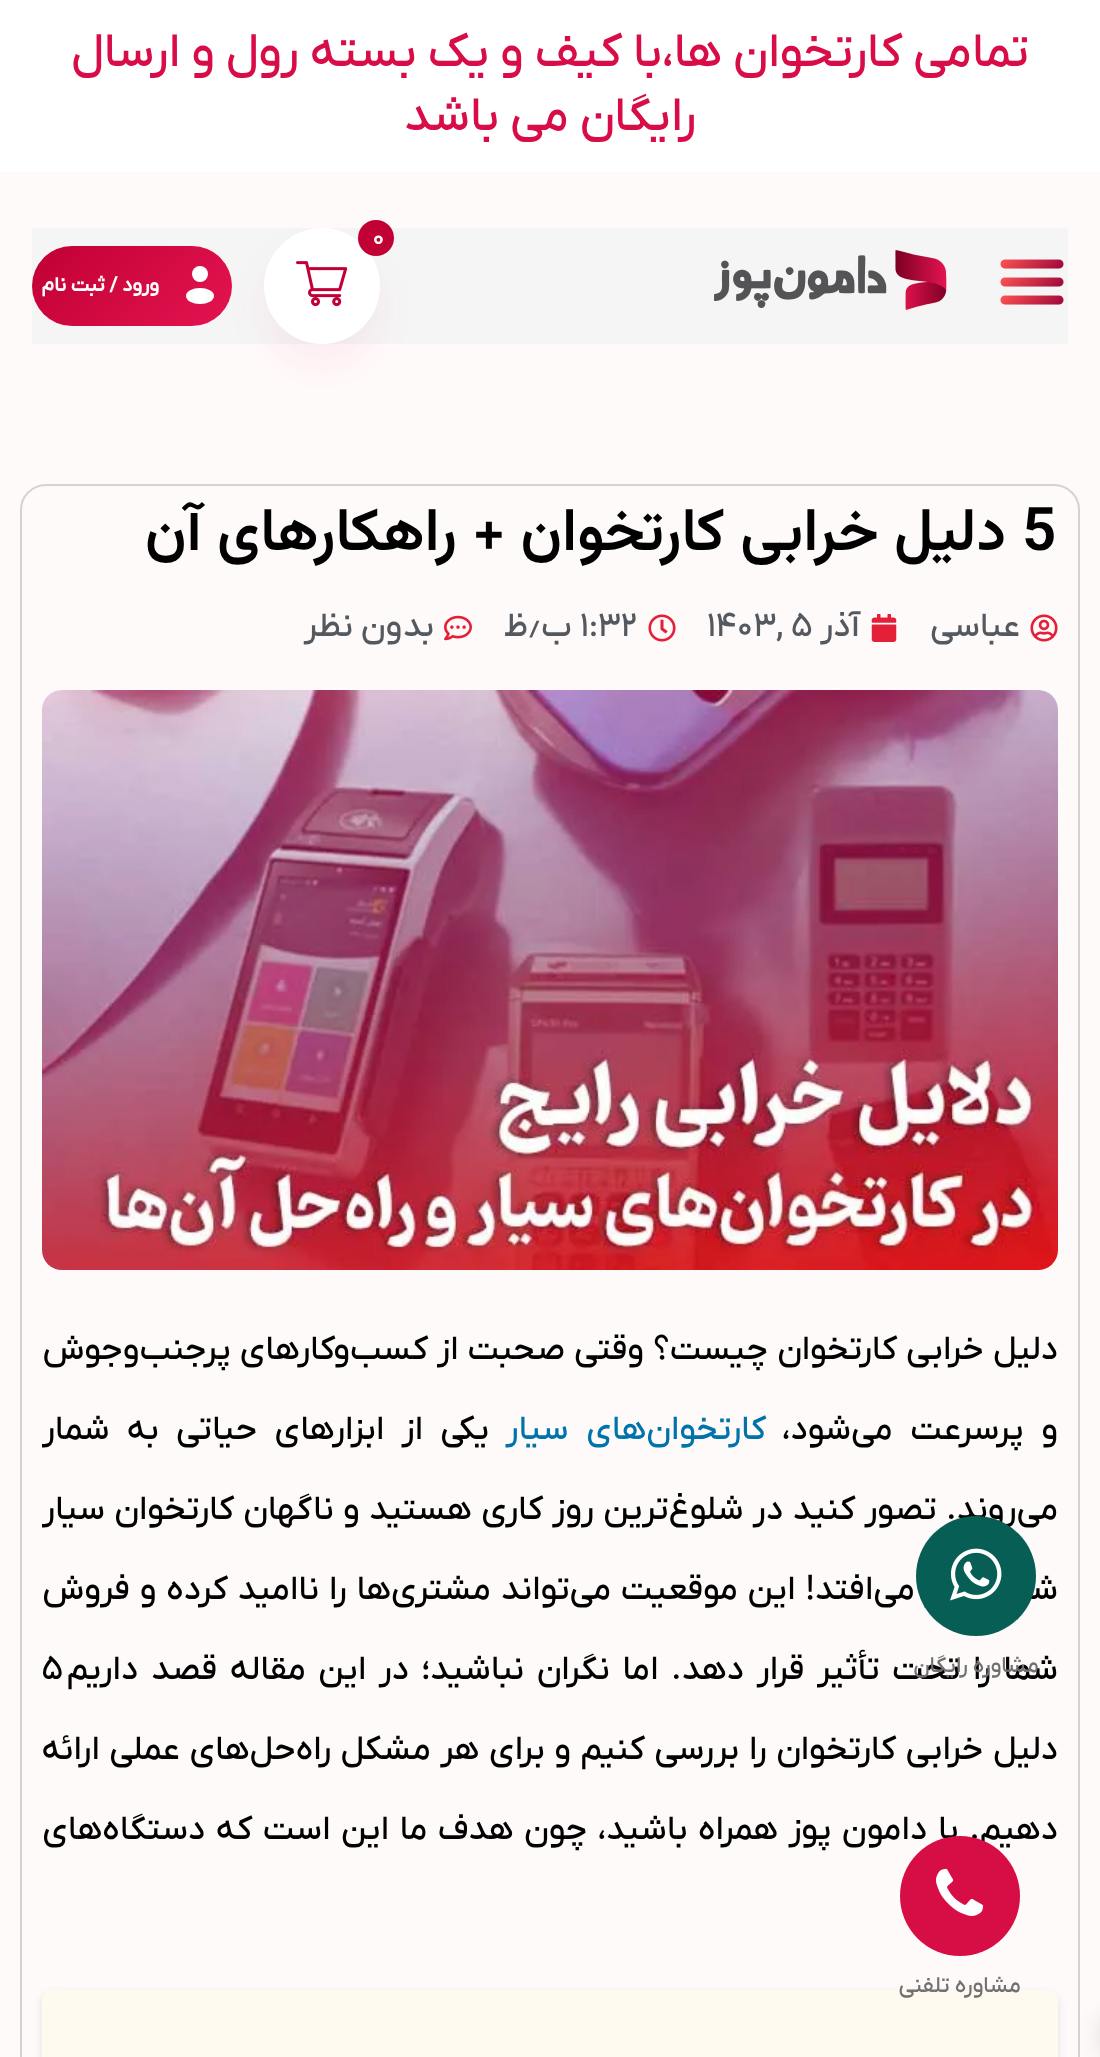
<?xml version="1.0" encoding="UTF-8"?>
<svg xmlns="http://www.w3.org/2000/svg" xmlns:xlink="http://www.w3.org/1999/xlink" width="1100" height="2057">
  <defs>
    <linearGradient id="g1" gradientUnits="userSpaceOnUse" x1="62" y1="216" x2="202" y2="356"><stop offset="0" stop-color="#c10035" /><stop offset="1" stop-color="#e41450" /></linearGradient>
  </defs>
  <rect width="100%" height="100%" fill="#fffafa" />
  <rect width="1100" height="172" fill="#ffffff" />
  <rect x="32" y="228" width="1036" height="116" fill="#f5f5f5" />
  <image x="1000" y="259" width="64" height="46" xlink:href="image1.png" />
  <image x="714" y="250" width="233" height="60" xlink:href="image2.png" />
  <rect x="32" y="246" width="200" height="80" rx="40" fill="url(#g1)" />
  <ellipse cx="200" cy="296" rx="14" ry="8" fill="#ffffff" />
  <rect x="264" y="252" width="116" height="116" rx="58" fill="#e41450" fill-opacity="0.06" filter="blur(18px)" />
  <circle cx="322" cy="286" r="58" fill="#ffffff" />
  <image x="296" y="261" width="52" height="46" xlink:href="image3.png" />
  <circle cx="376" cy="238" r="18" fill="#c10035" />
  <circle cx="200" cy="274" r="8" fill="#ffffff" />
  <rect x="21" y="485" width="1058" height="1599" rx="25" fill="none" stroke="#d5d2d2" stroke-width="2" />
  <image x="1030" y="614" width="28" height="28" xlink:href="image4.png" />
  <image x="871" y="614" width="26" height="28" xlink:href="image5.png" />
  <image x="648" y="614" width="28" height="28" xlink:href="image6.png" />
  <image x="444" y="615" width="28" height="26" xlink:href="image7.png" />
  <image x="42" y="690" width="1016" height="580" xlink:href="image8.png" />
  <rect x="42" y="1994" width="1016" height="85" rx="10" fill="#000000" fill-opacity="0.1" filter="blur(4px)" />
  <rect x="42" y="1990" width="1016" height="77" rx="10" fill="#fffaf0" />
  <rect x="1100" y="2016" width="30" height="40" fill="#000000" fill-opacity="0.1" filter="blur(10px)" />
  <text x="1029" y="66" style="font-family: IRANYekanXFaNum; font-size: 48px; font-weight: 500; direction: rtl; fill: #d80d47">تمامی کارتخوان ها،با کیف و یک بسته رول و ارسال</text>
  <text x="696" y="130" style="font-family: IRANYekanXFaNum; font-size: 48px; font-weight: 500; direction: rtl; fill: #d80d47">رایگان می باشد</text>
  <text x="372" y="245" style="font-family: IRANYekanXFaNum; font-size: 26px; font-weight: 500; fill: #ffffff">0</text>
  <text x="159" y="291" style="font-family: IRANYekanXFaNum; font-size: 20px; font-weight: bold; direction: rtl; fill: #ffffff">ورود / ثبت نام</text>
  <text x="1022" y="550" style="font-family: Vazirmatn; font-size: 60px; font-weight: 600; fill: #010101">5</text>
  <text x="1006" y="550" style="font-family: Vazirmatn; font-size: 60px; font-weight: 600; direction: rtl; fill: #010101">دلیل خرابی کارتخوان + راهکارهای آن</text>
  <text x="1020" y="636" style="font-family: IRANYekanXFaNum; font-size: 34px; font-weight: 500; direction: rtl; fill: #54595f">عباسی</text>
  <text x="860" y="636" style="font-family: IRANYekanXFaNum; font-size: 34px; font-weight: 500; direction: rtl; fill: #54595f">آذر</text>
  <text x="707" y="636" style="font-family: IRANYekanXFaNum; font-size: 34px; font-weight: 500; fill: #54595f">۱۴۰۳, ۵</text>
  <text x="580" y="636" style="font-family: IRANYekanXFaNum; font-size: 34px; font-weight: 500; fill: #54595f">۱:۳۲</text>
  <text x="572" y="636" style="font-family: IRANYekanXFaNum; font-size: 34px; font-weight: 500; direction: rtl; fill: #54595f">ب</text>
  <text x="528" y="636" style="font-family: IRANYekanXFaNum; font-size: 34px; font-weight: 500; fill: #54595f">٫</text>
  <text x="528" y="636" style="font-family: IRANYekanXFaNum; font-size: 34px; font-weight: 500; direction: rtl; fill: #54595f">ظ</text>
  <text x="434" y="636" style="font-family: IRANYekanXFaNum; font-size: 34px; font-weight: 500; direction: rtl; fill: #54595f">بدون نظر</text>
  <text x="1058" y="1359" word-spacing="1.25" style="font-family: IRANYekanXFaNum; font-size: 34px; font-weight: 500; direction: rtl; fill: #010101">دلیل خرابی کارتخوان چیست؟ وقتی صحبت از کسب‌وکارهای پرجنب‌وجوش</text>
  <text x="1058" y="1439" word-spacing="10" style="font-family: IRANYekanXFaNum; font-size: 34px; font-weight: 500; direction: rtl; fill: #010101">و پرسرعت می‌شود،</text>
  <text x="766" y="1439" word-spacing="10" style="font-family: IRANYekanXFaNum; font-size: 34px; font-weight: 500; direction: rtl; fill: #0073aa">کارتخوان‌های سیار</text>
  <text x="489" y="1439" word-spacing="9.5" style="font-family: IRANYekanXFaNum; font-size: 34px; font-weight: 500; direction: rtl; fill: #010101">یکی از ابزارهای حیاتی به شمار</text>
  <text x="1058" y="1519" word-spacing="1.5" style="font-family: IRANYekanXFaNum; font-size: 34px; font-weight: 500; direction: rtl; fill: #010101">می‌روند. تصور کنید در شلوغ‌ترین روز کاری هستید و ناگهان کارتخوان سیار</text>
  <text x="1058" y="1599" word-spacing="2" style="font-family: IRANYekanXFaNum; font-size: 34px; font-weight: 500; direction: rtl; fill: #010101">شما از کار می‌افتد! این موقعیت می‌تواند مشتری‌ها را ناامید کرده و فروش</text>
  <text x="1058" y="1679" word-spacing="4.75" style="font-family: IRANYekanXFaNum; font-size: 34px; font-weight: 500; direction: rtl; fill: #010101">شما را تحت تأثیر قرار دهد. اما نگران نباشید؛ در این مقاله قصد داریم</text>
  <text x="42" y="1679" style="font-family: IRANYekanXFaNum; font-size: 34px; font-weight: 500; fill: #010101">5</text>
  <text x="1058" y="1759" word-spacing="1.75" style="font-family: IRANYekanXFaNum; font-size: 34px; font-weight: 500; direction: rtl; fill: #010101">دلیل خرابی کارتخوان را بررسی کنیم و برای هر مشکل راه‌حل‌های عملی ارائه</text>
  <text x="1058" y="1839" word-spacing="2.75" style="font-family: IRANYekanXFaNum; font-size: 34px; font-weight: 500; direction: rtl; fill: #010101">دهیم. با دامون پوز همراه باشید، چون هدف ما این است که دستگاه‌های</text>
  <circle cx="976" cy="1576" r="60" fill="#075e54" />
  <image x="950" y="1548" width="52" height="53" xlink:href="image9.png" />
  <text x="1039" y="1672" style="font-family: IRANYekanXFaNum; font-size: 22.5px; font-weight: 500; direction: rtl; fill: #707070">مشاوره رایگان</text>
  <circle cx="960" cy="1896" r="60" fill="#d70d46" />
  <image x="936" y="1868" width="48" height="48" xlink:href="image10.png" />
  <text x="1021" y="1992" style="font-family: IRANYekanXFaNum; font-size: 22.5px; font-weight: 500; direction: rtl; fill: #707070">مشاوره تلفنی</text>
</svg>
